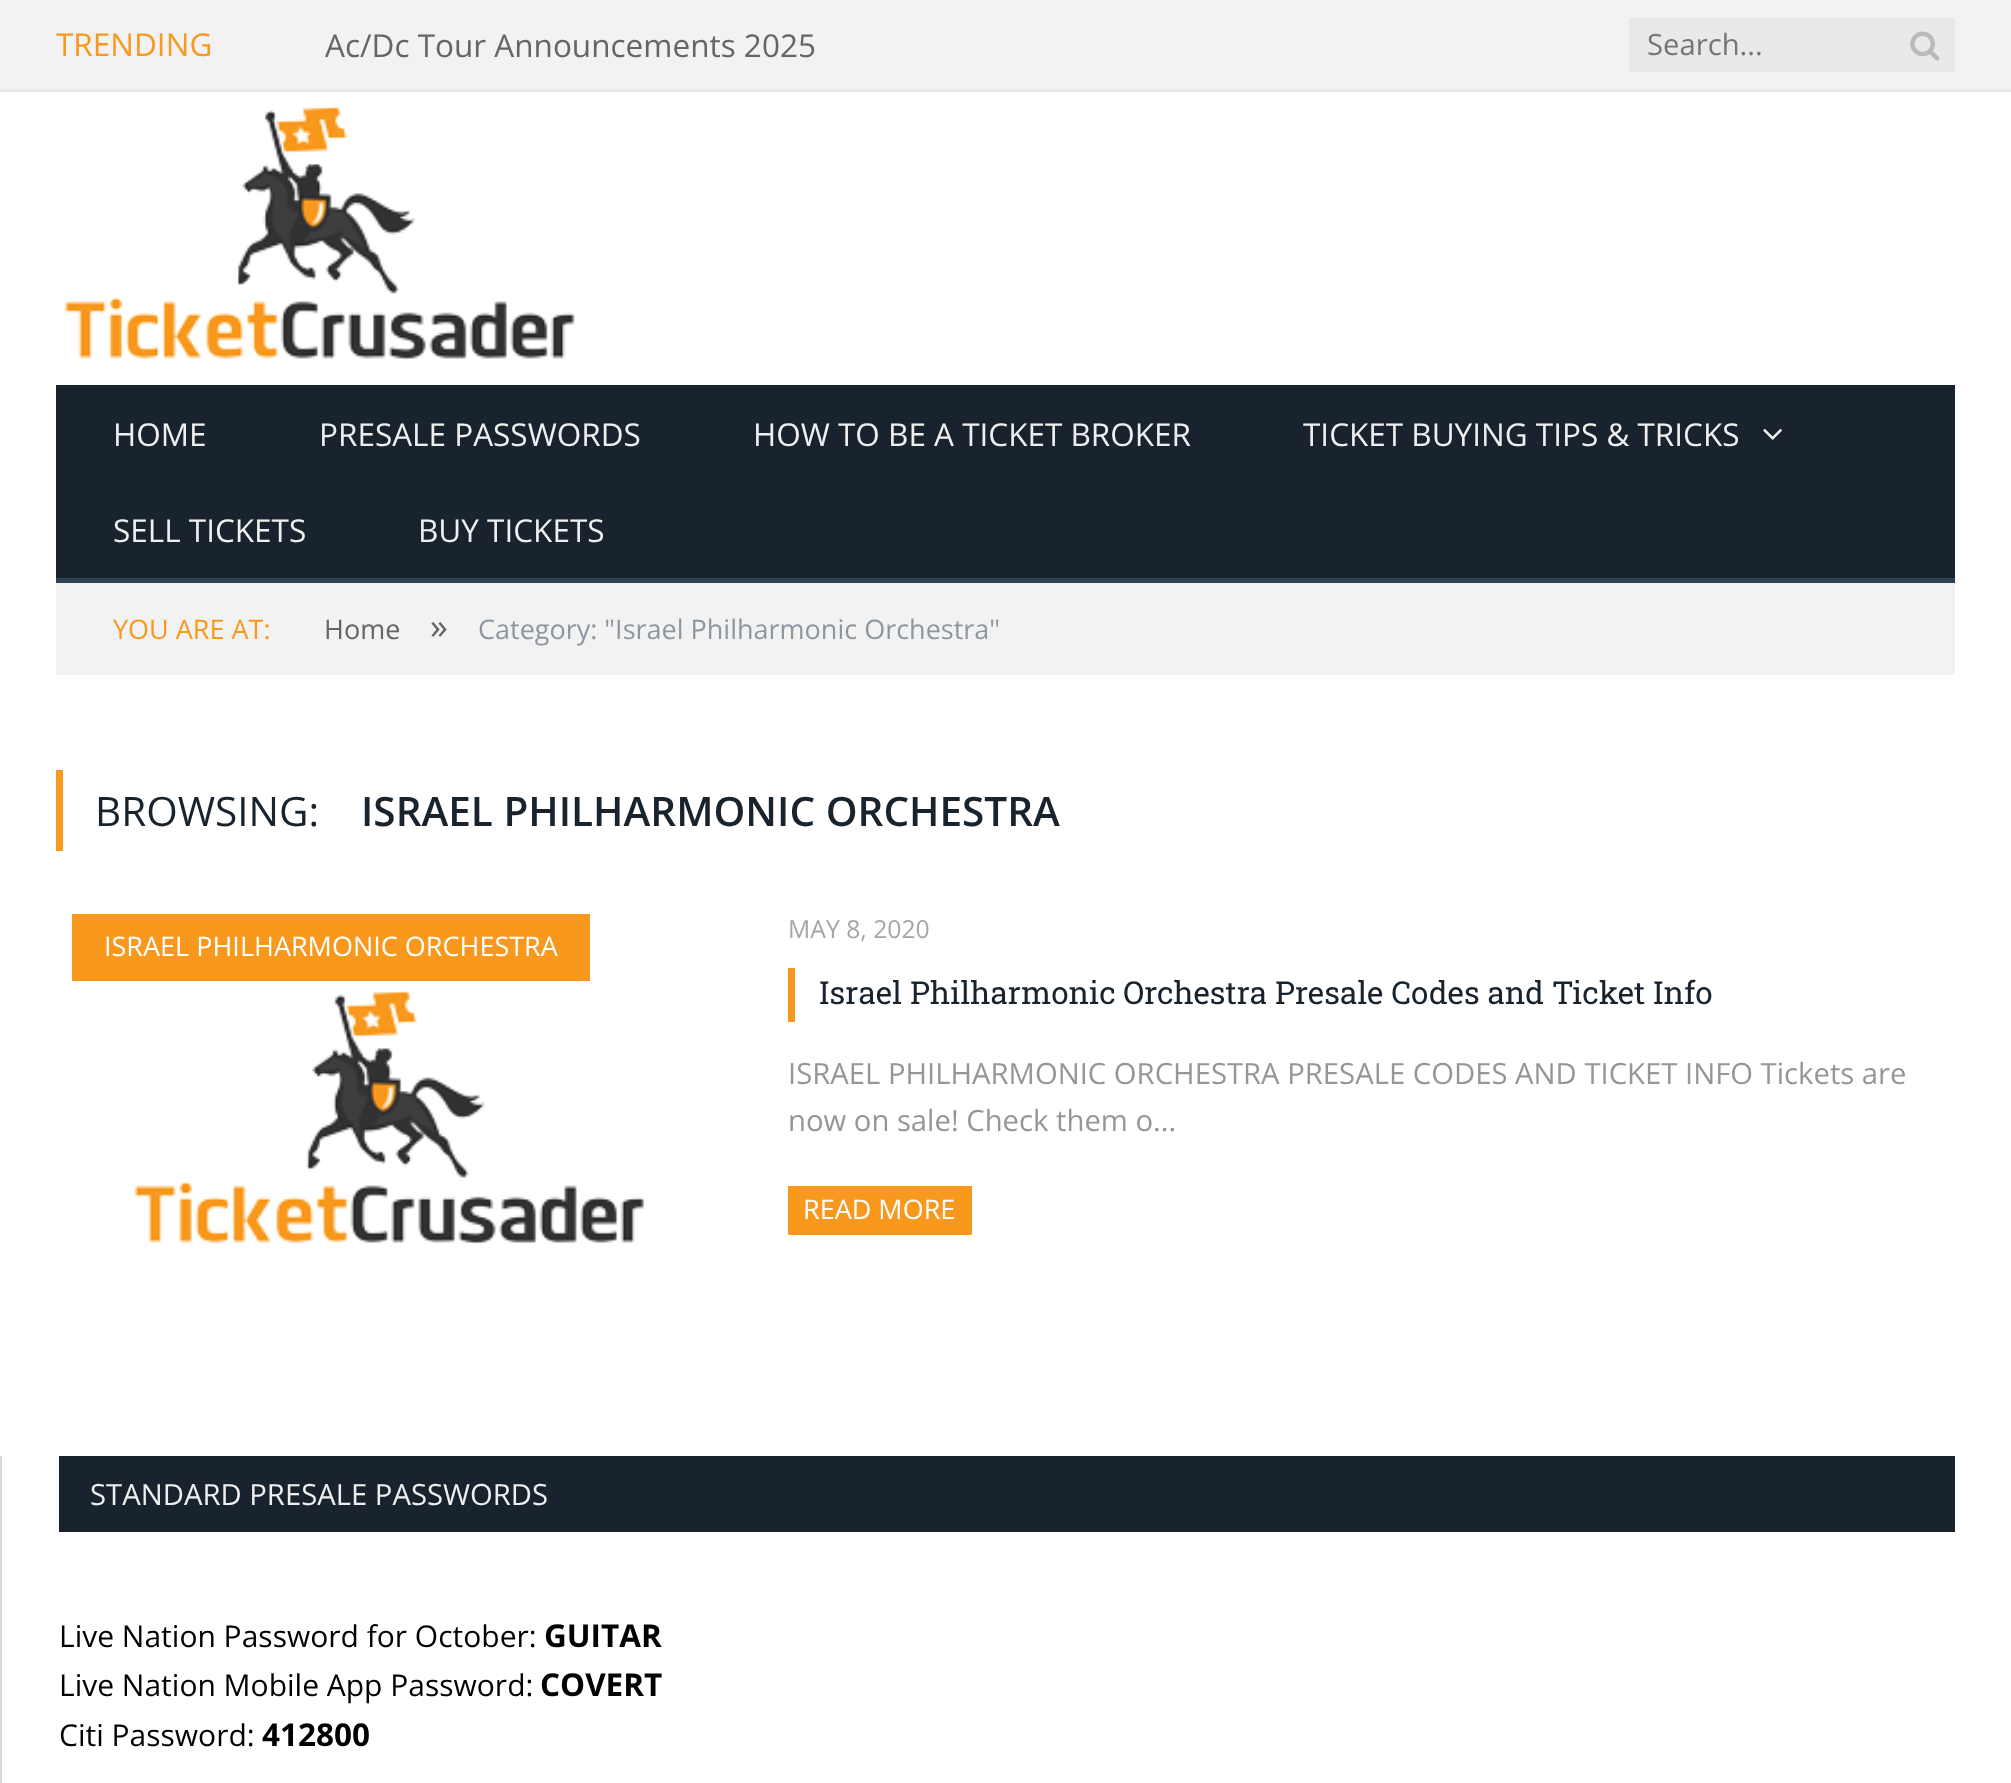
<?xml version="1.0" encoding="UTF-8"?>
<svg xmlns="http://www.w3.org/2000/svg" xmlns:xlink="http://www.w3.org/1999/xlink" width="2011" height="1783">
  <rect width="100%" height="100%" fill="#ffffff" />
  <rect width="2011" height="90" fill="#f2f2f2" />
  <rect y="90" width="2011" height="2" fill="#e7e7e7" />
  <rect x="1629" y="18" width="326" height="54" fill="#e9e9e9" />
  <image x="1910" y="31" width="30" height="30" xlink:href="image1.png" />
  <image x="64" y="105" width="511" height="256" xlink:href="image2.png" />
  <rect x="56" y="385" width="1899" height="193" fill="#19232d" />
  <rect x="56" y="578" width="1899" height="5" fill="#2f4154" />
  <image x="1763" y="428" width="19" height="12" xlink:href="image3.png" />
  <rect x="56" y="583" width="1899" height="92" fill="#f2f2f2" />
  <rect x="56" y="770" width="7" height="81" fill="#f8981d" />
  <rect x="72" y="914" width="518" height="67" fill="#f8981d" />
  <rect x="788" y="968" width="7" height="54" fill="#f8981d" />
  <rect x="788" y="1186" width="184" height="49" fill="#f8981d" />
  <image x="134" y="990" width="511" height="255" xlink:href="image4.png" />
  <rect y="1456" width="2" height="327" fill="#d9d9d9" />
  <rect x="59" y="1456" width="1896" height="76" fill="#19232d" />
  <text x="56" y="56" style="font-family: Open Sans; font-size: 31.5px; fill: #f8981d">TRENDING</text>
  <text x="325" y="57" style="font-family: Open Sans; font-size: 31.5px; fill: #656565">Ac/Dc Tour Announcements 2025</text>
  <text x="1647" y="55" style="font-family: Open Sans; font-size: 29.25px; fill: #757575">Search...</text>
  <text x="113" y="446" style="font-family: Open Sans; font-size: 31.5px; fill: #efefef">HOME</text>
  <text x="319" y="446" style="font-family: Open Sans; font-size: 31.5px; fill: #efefef">PRESALE PASSWORDS</text>
  <text x="753" y="446" style="font-family: Open Sans; font-size: 31.5px; fill: #efefef">HOW TO BE A TICKET BROKER</text>
  <text x="1303" y="446" style="font-family: Open Sans; font-size: 31.5px; fill: #efefef">TICKET BUYING TIPS &amp; TRICKS</text>
  <text x="113" y="542" style="font-family: Open Sans; font-size: 31.5px; fill: #efefef">SELL TICKETS</text>
  <text x="418" y="542" style="font-family: Open Sans; font-size: 31.5px; fill: #efefef">BUY TICKETS</text>
  <text x="113" y="639" style="font-family: Open Sans; font-size: 27px; fill: #f8981d">YOU ARE AT:</text>
  <text x="324" y="639" style="font-family: Open Sans; font-size: 27px; fill: #656565">Home</text>
  <text x="430" y="639" style="font-family: Open Sans; font-size: 36px; fill: #656565">»</text>
  <text x="478" y="639" style="font-family: Open Sans; font-size: 27px; fill: #8d97a1">Category: "Israel Philharmonic Orchestra"</text>
  <text x="95" y="826" style="font-family: Open Sans; font-size: 40.5px; fill: #19232d">BROWSING:</text>
  <text x="361" y="826" style="font-family: Open Sans; font-size: 40.5px; font-weight: 600; fill: #19232d">ISRAEL PHILHARMONIC ORCHESTRA</text>
  <text x="104" y="956" style="font-family: Open Sans; font-size: 27px; fill: #ffffff">ISRAEL PHILHARMONIC ORCHESTRA</text>
  <text x="788" y="938" style="font-family: Open Sans; font-size: 24.75px; fill: #a6a6a6">MAY 8, 2020</text>
  <text x="819" y="1004" style="font-family: Roboto Slab; font-size: 31.5px; fill: #19232d">Israel Philharmonic Orchestra Presale Codes and Ticket Info</text>
  <text x="788" y="1084" style="font-family: Open Sans; font-size: 29.25px; fill: #949697">ISRAEL PHILHARMONIC ORCHESTRA PRESALE CODES AND TICKET INFO Tickets are</text>
  <text x="788" y="1131" style="font-family: Open Sans; font-size: 29.25px; fill: #949697">now on sale! Check them o...</text>
  <text x="803" y="1219" style="font-family: Open Sans; font-size: 27px; fill: #ffffff">READ MORE</text>
  <text x="90" y="1505" style="font-family: Open Sans; font-size: 29.25px; fill: #efefef">STANDARD PRESALE PASSWORDS</text>
  <text x="59" y="1647" style="font-family: Open Sans; font-size: 30px; fill: #000000">Live Nation Password for October:</text>
  <text x="544" y="1647" style="font-family: Open Sans; font-size: 31.5px; font-weight: bold; fill: #000000">GUITAR</text>
  <text x="59" y="1696" style="font-family: Open Sans; font-size: 30px; fill: #000000">Live Nation Mobile App Password:</text>
  <text x="540" y="1696" style="font-family: Open Sans; font-size: 31.5px; font-weight: bold; fill: #000000">COVERT</text>
  <text x="59" y="1746" style="font-family: Open Sans; font-size: 30px; fill: #000000">Citi Password:</text>
  <text x="262" y="1746" style="font-family: Open Sans; font-size: 31.5px; font-weight: bold; fill: #000000">412800</text>
</svg>
